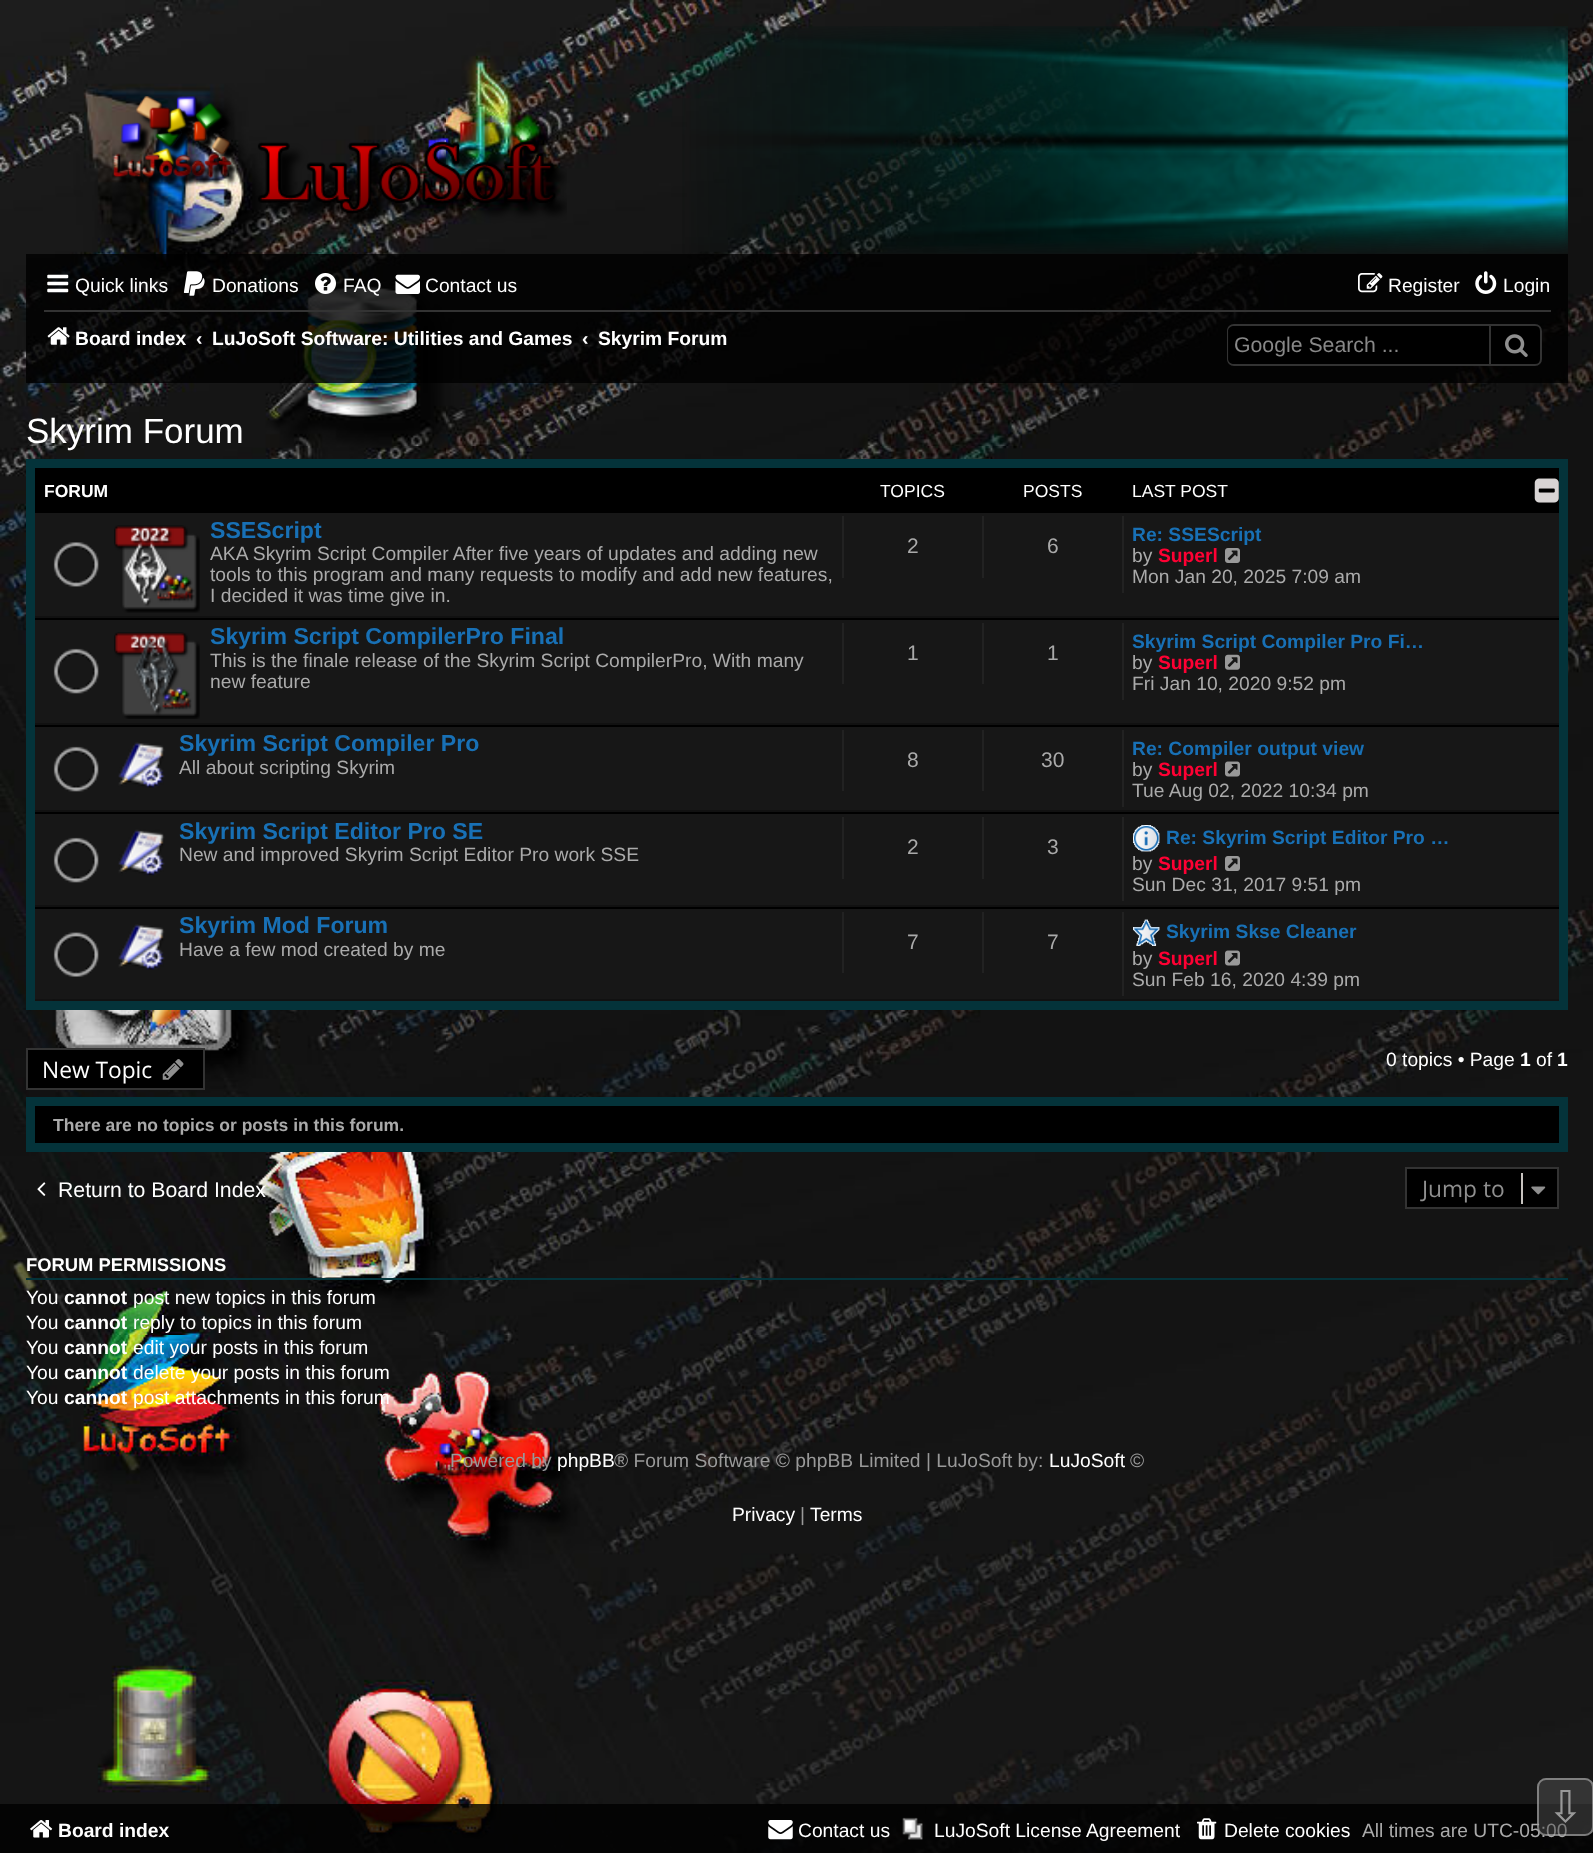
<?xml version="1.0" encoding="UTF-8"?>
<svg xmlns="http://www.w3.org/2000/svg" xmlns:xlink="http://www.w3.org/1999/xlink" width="1593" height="1853">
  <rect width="100%" height="100%" fill="#ffffff" />
  <image x="0" y="0" width="1593" height="1853" xlink:href="image1.png" />
  <image x="682" y="26" width="886" height="228" xlink:href="image2.png" />
  <image x="113" y="96" width="454" height="130" xlink:href="image3.png" />
  <rect x="26" y="254" width="1542" height="129" fill="#000000" fill-opacity="0.8" />
  <image x="47" y="274" width="22" height="19" xlink:href="image4.png" />
  <image x="183" y="271" width="22" height="25" xlink:href="image5.png" />
  <image x="315" y="273" width="21" height="21" xlink:href="image6.png" />
  <image x="395" y="274" width="25" height="20" xlink:href="image7.png" />
  <image x="1358" y="273" width="25" height="20" xlink:href="image8.png" />
  <image x="1475" y="271" width="22" height="23" xlink:href="image9.png" />
  <rect x="44" y="310" width="1507" height="2" fill="#333333" />
  <image x="47" y="327" width="23" height="18" xlink:href="image10.png" />
  <path d="M 1234 326 h 255 v 38 h -255 c -3 0 -5 -2 -5 -5 v -28 c 0 -3 2 -5 5 -5 z" fill="#000000" />
  <path d="M 1234 324 h 255 v 42 h -255 c -4 0 -7 -3 -7 -7 v -28 c 0 -4 3 -7 7 -7 z m 0 2 h 255 v 38 h -255 c -3 0 -6 -2 -6 -5 v -28 c 0 -3 3 -5 6 -5 z" fill="#333333" fill-rule="evenodd" />
  <path d="M 1490 325 h 45 c 3.5 0 6 2.5 6 6 v 28 c 0 3.5 -2.5 6 -6 6 h -45 z" fill="#000000" stroke="#333333" stroke-width="2" />
  <image x="1505" y="334" width="23" height="23" xlink:href="image11.png" />
  <rect x="35" y="468" width="1524" height="43" fill="#000000" />
  <rect x="30.5" y="463.5" width="1533" height="542" fill="none" stroke="#04333a" stroke-width="9" />
  <image x="1534" y="478" width="25" height="25" xlink:href="image12.png" />
  <rect x="35" y="513" width="1524" height="486" fill="#171717" />
  <rect x="35" y="511" width="1524" height="2" fill="#000000" />
  <rect x="35" y="616" width="1524" height="2" fill="#111111" />
  <image x="53" y="542" width="46" height="45" xlink:href="image13.png" />
  <image x="114" y="525" width="86" height="88" xlink:href="image14.png" />
  <rect x="842" y="516" width="2" height="62" fill="#222222" />
  <rect x="982" y="516" width="2" height="62" fill="#222222" />
  <rect x="1122" y="516" width="2" height="77" fill="#222222" />
  <image x="1225" y="548" width="15" height="15" xlink:href="image15.png" />
  <rect x="35" y="618" width="1524" height="2" fill="#000000" />
  <rect x="35" y="723" width="1524" height="2" fill="#111111" />
  <image x="53" y="648" width="46" height="46" xlink:href="image16.png" />
  <image x="114" y="632" width="86" height="87" xlink:href="image17.png" />
  <rect x="842" y="623" width="2" height="61" fill="#222222" />
  <rect x="982" y="623" width="2" height="61" fill="#222222" />
  <rect x="1122" y="623" width="2" height="77" fill="#222222" />
  <image x="1225" y="654" width="15" height="16" xlink:href="image18.png" />
  <rect x="35" y="725" width="1524" height="2" fill="#000000" />
  <rect x="35" y="810" width="1524" height="2" fill="#111111" />
  <image x="53" y="746" width="46" height="46" xlink:href="image16.png" />
  <image x="118" y="742" width="47" height="46" xlink:href="image19.png" />
  <rect x="842" y="730" width="2" height="61" fill="#222222" />
  <rect x="982" y="730" width="2" height="61" fill="#222222" />
  <rect x="1122" y="730" width="2" height="77" fill="#222222" />
  <image x="1225" y="761" width="15" height="16" xlink:href="image20.png" />
  <rect x="35" y="812" width="1524" height="2" fill="#000000" />
  <rect x="35" y="905" width="1524" height="2" fill="#111111" />
  <image x="53" y="837" width="46" height="46" xlink:href="image16.png" />
  <image x="118" y="829" width="47" height="47" xlink:href="image21.png" />
  <rect x="842" y="817" width="2" height="62" fill="#222222" />
  <rect x="982" y="817" width="2" height="62" fill="#222222" />
  <rect x="1122" y="817" width="2" height="84" fill="#222222" />
  <image x="1133" y="825" width="27" height="27" xlink:href="image22.png" />
  <image x="1225" y="856" width="15" height="15" xlink:href="image15.png" />
  <rect x="35" y="907" width="1524" height="2" fill="#000000" />
  <rect x="55" y="999" width="1484" height="2" fill="#111111" />
  <image x="53" y="932" width="46" height="45" xlink:href="image23.png" />
  <image x="118" y="924" width="47" height="46" xlink:href="image19.png" />
  <rect x="842" y="912" width="2" height="61" fill="#222222" />
  <rect x="982" y="912" width="2" height="61" fill="#222222" />
  <rect x="1122" y="912" width="2" height="84" fill="#222222" />
  <image x="1133" y="919" width="27" height="27" xlink:href="image24.png" />
  <image x="1225" y="950" width="15" height="16" xlink:href="image25.png" />
  <rect x="27" y="1049" width="177" height="40" fill="#000000" stroke="#333333" stroke-width="2" />
  <image x="162" y="1059" width="22" height="21" xlink:href="image26.png" />
  <rect x="30.5" y="1101.5" width="1533" height="46" fill="#000000" stroke="#04333a" stroke-width="9" />
  <image x="37" y="1182" width="9" height="14" xlink:href="image27.png" />
  <rect x="1406" y="1168" width="152" height="40" fill="#000000" stroke="#333333" stroke-width="2" />
  <rect x="1521" y="1173" width="2" height="31" fill="#c7c3bf" />
  <image x="1531" y="1186" width="15" height="9" xlink:href="image28.png" />
  <rect x="26" y="1278" width="1542" height="2" fill="#04333a" />
  <rect y="1804" width="1593" height="49" fill="#000000" fill-opacity="0.8" />
  <image x="30" y="1820" width="23" height="18" xlink:href="image29.png" />
  <image x="768" y="1820" width="25" height="20" xlink:href="image30.png" />
  <image x="902" y="1817" width="21" height="23" xlink:href="image31.png" />
  <image x="1197" y="1818" width="20" height="22" xlink:href="image32.png" />
  <text x="75" y="292" style="font-family: Liberation Sans; font-size: 19.25px; fill: #ffffff">Quick links</text>
  <text x="212" y="292" style="font-family: Liberation Sans; font-size: 19.25px; fill: #ffffff">Donations</text>
  <text x="343" y="292" style="font-family: Liberation Sans; font-size: 19.25px; fill: #ffffff">FAQ</text>
  <text x="425" y="292" style="font-family: Liberation Sans; font-size: 19.25px; fill: #ffffff">Contact us</text>
  <text x="1388" y="292" style="font-family: Liberation Sans; font-size: 19.25px; fill: #ffffff">Register</text>
  <text x="1503" y="292" style="font-family: Liberation Sans; font-size: 19.25px; fill: #ffffff">Login</text>
  <text x="75" y="345" style="font-family: Liberation Sans; font-size: 19.25px; font-weight: bold; fill: #ffffff">Board index</text>
  <text x="196" y="345" style="font-family: Liberation Sans; font-size: 19.25px; font-weight: bold; fill: #ffffff">‹</text>
  <text x="212" y="345" style="font-family: Liberation Sans; font-size: 19.25px; font-weight: bold; fill: #ffffff">LuJoSoft Software: Utilities and Games</text>
  <text x="582" y="345" style="font-family: Liberation Sans; font-size: 19.25px; font-weight: bold; fill: #ffffff">‹</text>
  <text x="598" y="345" style="font-family: Liberation Sans; font-size: 19.25px; font-weight: bold; fill: #ffffff">Skyrim Forum</text>
  <text x="1234" y="352" style="font-family: Liberation Sans; font-size: 21.25px; fill: #888888">Google Search ...</text>
  <text x="26" y="443" style="font-family: Liberation Sans; font-size: 35px; fill: #ffffff">Skyrim Forum</text>
  <text x="44" y="497" style="font-family: Liberation Sans; font-size: 17.5px; font-weight: bold; fill: #ffffff">FORUM</text>
  <text x="880" y="497" style="font-family: Liberation Sans; font-size: 17.5px; fill: #ffffff">TOPICS</text>
  <text x="1023" y="497" style="font-family: Liberation Sans; font-size: 17.5px; fill: #ffffff">POSTS</text>
  <text x="1132" y="497" style="font-family: Liberation Sans; font-size: 17.5px; fill: #ffffff">LAST POST</text>
  <text x="210" y="538" style="font-family: Liberation Sans; font-size: 23.1px; font-weight: bold; fill: #1870b5">SSEScript</text>
  <text x="210" y="560" style="font-family: Liberation Sans; font-size: 19.25px; fill: #aaaaaa">AKA Skyrim Script Compiler After five years of updates and adding new</text>
  <text x="210" y="581" style="font-family: Liberation Sans; font-size: 19.25px; fill: #aaaaaa">tools to this program and many requests to modify and add new features,</text>
  <text x="210" y="602" style="font-family: Liberation Sans; font-size: 19.25px; fill: #aaaaaa">I decided it was time give in.</text>
  <text x="907" y="553" style="font-family: Liberation Sans; font-size: 21px; fill: #aaaaaa">2</text>
  <text x="1047" y="553" style="font-family: Liberation Sans; font-size: 21px; fill: #aaaaaa">6</text>
  <text x="1132" y="541" style="font-family: Liberation Sans; font-size: 19.25px; font-weight: bold; fill: #1870b5">Re: SSEScript</text>
  <text x="1132" y="562" style="font-family: Liberation Sans; font-size: 19.25px; fill: #aaaaaa">by</text>
  <text x="1158" y="562" style="font-family: Liberation Sans; font-size: 19.25px; font-weight: bold; fill: #ff0033">Superl</text>
  <text x="1132" y="583" style="font-family: Liberation Sans; font-size: 19.25px; fill: #aaaaaa">Mon Jan 20, 2025 7:09 am</text>
  <text x="210" y="644" style="font-family: Liberation Sans; font-size: 23.1px; font-weight: bold; fill: #1870b5">Skyrim Script CompilerPro Final</text>
  <text x="210" y="667" style="font-family: Liberation Sans; font-size: 19.25px; fill: #aaaaaa">This is the finale release of the Skyrim Script CompilerPro, With many</text>
  <text x="210" y="688" style="font-family: Liberation Sans; font-size: 19.25px; fill: #aaaaaa">new feature</text>
  <text x="907" y="660" style="font-family: Liberation Sans; font-size: 21px; fill: #aaaaaa">1</text>
  <text x="1047" y="660" style="font-family: Liberation Sans; font-size: 21px; fill: #aaaaaa">1</text>
  <text x="1132" y="648" style="font-family: Liberation Sans; font-size: 19.25px; font-weight: bold; fill: #1870b5">Skyrim Script Compiler Pro Fi…</text>
  <text x="1132" y="669" style="font-family: Liberation Sans; font-size: 19.25px; fill: #aaaaaa">by</text>
  <text x="1158" y="669" style="font-family: Liberation Sans; font-size: 19.25px; font-weight: bold; fill: #ff0033">Superl</text>
  <text x="1132" y="690" style="font-family: Liberation Sans; font-size: 19.25px; fill: #aaaaaa">Fri Jan 10, 2020 9:52 pm</text>
  <text x="179" y="751" style="font-family: Liberation Sans; font-size: 23.1px; font-weight: bold; fill: #1870b5">Skyrim Script Compiler Pro</text>
  <text x="179" y="774" style="font-family: Liberation Sans; font-size: 19.25px; fill: #aaaaaa">All about scripting Skyrim</text>
  <text x="907" y="767" style="font-family: Liberation Sans; font-size: 21px; fill: #aaaaaa">8</text>
  <text x="1041" y="767" style="font-family: Liberation Sans; font-size: 21px; fill: #aaaaaa">30</text>
  <text x="1132" y="755" style="font-family: Liberation Sans; font-size: 19.25px; font-weight: bold; fill: #1870b5">Re: Compiler output view</text>
  <text x="1132" y="776" style="font-family: Liberation Sans; font-size: 19.25px; fill: #aaaaaa">by</text>
  <text x="1158" y="776" style="font-family: Liberation Sans; font-size: 19.25px; font-weight: bold; fill: #ff0033">Superl</text>
  <text x="1132" y="797" style="font-family: Liberation Sans; font-size: 19.25px; fill: #aaaaaa">Tue Aug 02, 2022 10:34 pm</text>
  <text x="179" y="839" style="font-family: Liberation Sans; font-size: 23.1px; font-weight: bold; fill: #1870b5">Skyrim Script Editor Pro SE</text>
  <text x="179" y="861" style="font-family: Liberation Sans; font-size: 19.25px; fill: #aaaaaa">New and improved Skyrim Script Editor Pro work SSE</text>
  <text x="907" y="854" style="font-family: Liberation Sans; font-size: 21px; fill: #aaaaaa">2</text>
  <text x="1047" y="854" style="font-family: Liberation Sans; font-size: 21px; fill: #aaaaaa">3</text>
  <text x="1166" y="844" style="font-family: Liberation Sans; font-size: 19.25px; font-weight: bold; fill: #1870b5">Re: Skyrim Script Editor Pro …</text>
  <text x="1132" y="870" style="font-family: Liberation Sans; font-size: 19.25px; fill: #aaaaaa">by</text>
  <text x="1158" y="870" style="font-family: Liberation Sans; font-size: 19.25px; font-weight: bold; fill: #ff0033">Superl</text>
  <text x="1132" y="891" style="font-family: Liberation Sans; font-size: 19.25px; fill: #aaaaaa">Sun Dec 31, 2017 9:51 pm</text>
  <text x="179" y="933" style="font-family: Liberation Sans; font-size: 23.1px; font-weight: bold; fill: #1870b5">Skyrim Mod Forum</text>
  <text x="179" y="956" style="font-family: Liberation Sans; font-size: 19.25px; fill: #aaaaaa">Have a few mod created by me</text>
  <text x="907" y="949" style="font-family: Liberation Sans; font-size: 21px; fill: #aaaaaa">7</text>
  <text x="1047" y="949" style="font-family: Liberation Sans; font-size: 21px; fill: #aaaaaa">7</text>
  <text x="1166" y="938" style="font-family: Liberation Sans; font-size: 19.25px; font-weight: bold; fill: #1870b5">Skyrim Skse Cleaner</text>
  <text x="1132" y="965" style="font-family: Liberation Sans; font-size: 19.25px; fill: #aaaaaa">by</text>
  <text x="1158" y="965" style="font-family: Liberation Sans; font-size: 19.25px; font-weight: bold; fill: #ff0033">Superl</text>
  <text x="1132" y="986" style="font-family: Liberation Sans; font-size: 19.25px; fill: #aaaaaa">Sun Feb 16, 2020 4:39 pm</text>
  <text x="42" y="1078" style="font-family: Open Sans; font-size: 22.75px; fill: #ffffff">New Topic</text>
  <text x="1386" y="1066" style="font-family: Liberation Sans; font-size: 19.25px; fill: #ffffff">0 topics • Page</text>
  <text x="1520" y="1066" style="font-family: Liberation Sans; font-size: 19.25px; font-weight: bold; fill: #ffffff">1</text>
  <text x="1536" y="1066" style="font-family: Liberation Sans; font-size: 19.25px; fill: #ffffff">of</text>
  <text x="1557" y="1066" style="font-family: Liberation Sans; font-size: 19.25px; font-weight: bold; fill: #ffffff">1</text>
  <text x="53" y="1131" style="font-family: Liberation Sans; font-size: 17.5px; font-weight: bold; fill: #aaaaaa">There are no topics or posts in this forum.</text>
  <text x="58" y="1197" style="font-family: Liberation Sans; font-size: 21.25px; fill: #ffffff">Return to Board Index</text>
  <text x="1422" y="1197" style="font-family: Open Sans; font-size: 22.75px; fill: #8f8f8f">Jump to</text>
  <text x="26" y="1271" style="font-family: Liberation Sans; font-size: 18.4px; font-weight: bold; fill: #ffffff">FORUM PERMISSIONS</text>
  <text x="26" y="1304" style="font-family: Liberation Sans; font-size: 19.25px; fill: #ffffff">You</text>
  <text x="64" y="1304" style="font-family: Liberation Sans; font-size: 19.25px; font-weight: bold; fill: #ffffff">cannot</text>
  <text x="133" y="1304" style="font-family: Liberation Sans; font-size: 19.25px; fill: #ffffff">post new topics in this forum</text>
  <text x="26" y="1329" style="font-family: Liberation Sans; font-size: 19.25px; fill: #ffffff">You</text>
  <text x="64" y="1329" style="font-family: Liberation Sans; font-size: 19.25px; font-weight: bold; fill: #ffffff">cannot</text>
  <text x="133" y="1329" style="font-family: Liberation Sans; font-size: 19.25px; fill: #ffffff">reply to topics in this forum</text>
  <text x="26" y="1354" style="font-family: Liberation Sans; font-size: 19.25px; fill: #ffffff">You</text>
  <text x="64" y="1354" style="font-family: Liberation Sans; font-size: 19.25px; font-weight: bold; fill: #ffffff">cannot</text>
  <text x="133" y="1354" style="font-family: Liberation Sans; font-size: 19.25px; fill: #ffffff">edit your posts in this forum</text>
  <text x="26" y="1379" style="font-family: Liberation Sans; font-size: 19.25px; fill: #ffffff">You</text>
  <text x="64" y="1379" style="font-family: Liberation Sans; font-size: 19.25px; font-weight: bold; fill: #ffffff">cannot</text>
  <text x="133" y="1379" style="font-family: Liberation Sans; font-size: 19.25px; fill: #ffffff">delete your posts in this forum</text>
  <text x="26" y="1404" style="font-family: Liberation Sans; font-size: 19.25px; fill: #ffffff">You</text>
  <text x="64" y="1404" style="font-family: Liberation Sans; font-size: 19.25px; font-weight: bold; fill: #ffffff">cannot</text>
  <text x="133" y="1404" style="font-family: Liberation Sans; font-size: 19.25px; fill: #ffffff">post attachments in this forum</text>
  <text x="450" y="1467" style="font-family: Liberation Sans; font-size: 19.25px; fill: #999999">Powered by</text>
  <text x="557" y="1467" style="font-family: Liberation Sans; font-size: 19.25px; fill: #ffffff">phpBB</text>
  <text x="614" y="1467" style="font-family: Liberation Sans; font-size: 19.25px; fill: #999999">® Forum Software © phpBB Limited | LuJoSoft by:</text>
  <text x="1049" y="1467" style="font-family: Liberation Sans; font-size: 19.25px; fill: #ffffff">LuJoSoft</text>
  <text x="1130" y="1467" style="font-family: Liberation Sans; font-size: 19.25px; fill: #999999">©</text>
  <text x="732" y="1521" style="font-family: Liberation Sans; font-size: 19.25px; fill: #ffffff">Privacy</text>
  <text x="800" y="1521" style="font-family: Liberation Sans; font-size: 19.25px; fill: #999999">|</text>
  <text x="810" y="1521" style="font-family: Liberation Sans; font-size: 19.25px; fill: #ffffff">Terms</text>
  <text x="58" y="1837" style="font-family: Liberation Sans; font-size: 19.25px; font-weight: bold; fill: #ffffff">Board index</text>
  <text x="798" y="1837" style="font-family: Liberation Sans; font-size: 19.25px; fill: #ffffff">Contact us</text>
  <text x="934" y="1837" style="font-family: Liberation Sans; font-size: 19.25px; fill: #ffffff">LuJoSoft License Agreement</text>
  <text x="1224" y="1837" style="font-family: Liberation Sans; font-size: 19.25px; fill: #ffffff">Delete cookies</text>
  <text x="1362" y="1837" style="font-family: Liberation Sans; font-size: 19.25px; fill: #aaaaaa">All times are UTC-05:00</text>
  <rect x="1537" y="1778" width="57" height="58" rx="9" fill="#4f4f4f" fill-opacity="0.5" />
  <rect x="1538" y="1779" width="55" height="56" rx="8" fill="none" stroke="#cccccc" stroke-opacity="0.5" stroke-width="2" />
  <text x="1547" y="1822" style="font-family: DejaVu Sans; font-size: 44px; fill: #999999">⇩</text>
</svg>
